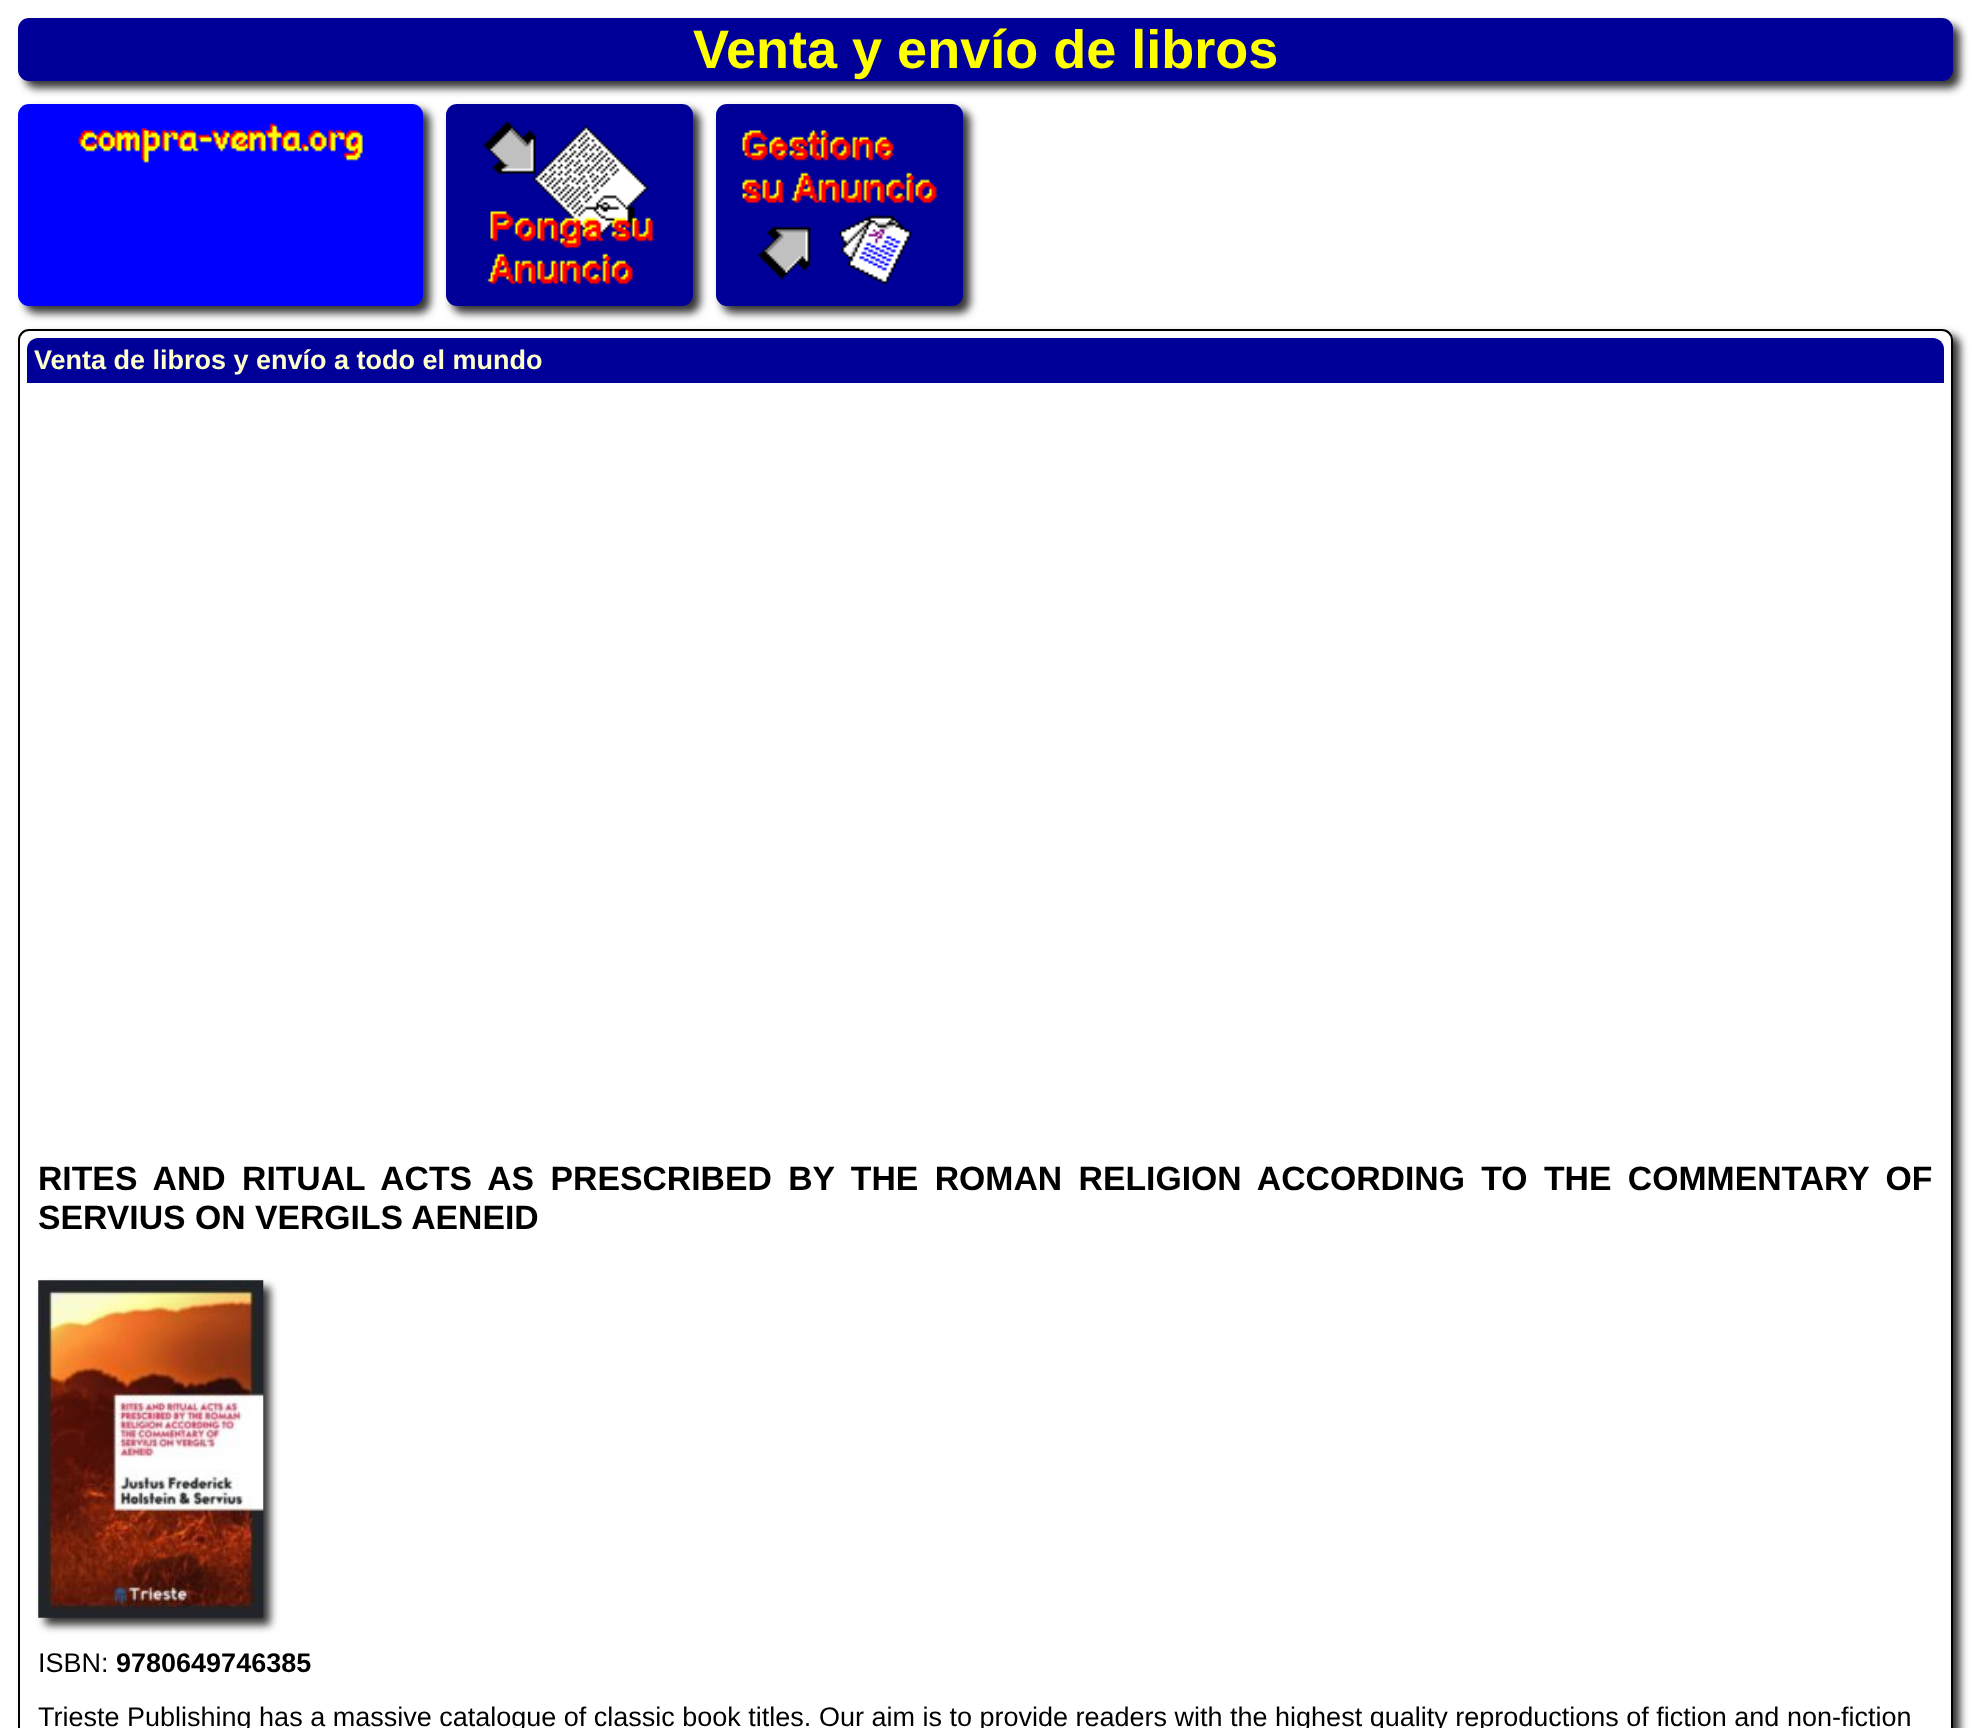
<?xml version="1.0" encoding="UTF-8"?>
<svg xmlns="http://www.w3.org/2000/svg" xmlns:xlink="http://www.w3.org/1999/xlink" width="1969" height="1728">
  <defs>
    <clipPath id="clip1"><path d="M 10 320 h 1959 v 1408 h -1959 z m 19 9 h 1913 c 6 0 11 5 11 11 v 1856 c 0 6 -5 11 -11 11 h -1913 c -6 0 -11 -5 -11 -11 v -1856 c 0 -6 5 -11 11 -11 z" clip-rule="evenodd" /></clipPath>
  </defs>
  <rect width="100%" height="100%" fill="#ffffff" />
  <rect x="25" y="25" width="1935" height="63" rx="11" fill="#333333" filter="blur(4.5px)" />
  <rect x="18" y="18" width="1935" height="63" rx="11" fill="#000099" />
  <rect x="25" y="110" width="405" height="203" rx="11" fill="#333333" filter="blur(4.5px)" />
  <rect x="18" y="104" width="405" height="202" rx="11" fill="#0000ff" />
  <image x="78" y="123" width="285" height="40" xlink:href="image1.png" />
  <rect x="452" y="110" width="248" height="203" rx="11" fill="#333333" filter="blur(4.5px)" />
  <rect x="446" y="104" width="247" height="202" rx="11" fill="#000099" />
  <image x="483" y="121" width="171" height="164" xlink:href="image2.png" />
  <rect x="722" y="110" width="248" height="203" rx="11" fill="#333333" filter="blur(4.5px)" />
  <rect x="716" y="104" width="247" height="202" rx="11" fill="#000099" />
  <image x="742" y="130" width="195" height="155" xlink:href="image3.png" />
  <g clip-path="url(#clip1)">
    <rect x="25" y="335" width="1935" height="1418" rx="11" fill="#333333" filter="blur(4.5px)" />
  </g>
  <rect x="19" y="330" width="1933" height="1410" rx="10" fill="none" stroke="#000000" stroke-width="2" />
  <path d="M 38 338 h 1895 c 6 0 11 5 11 11 v 34 h -1917 v -34 c 0 -6 5 -11 11 -11 z" fill="#000099" />
  <rect x="45" y="1287" width="225" height="338" fill="#333333" filter="blur(4.5px)" />
  <image x="38" y="1280" width="226" height="338" xlink:href="image4.png" />
  <text x="693" y="68" style="font-family: Liberation Sans; font-size: 54px; font-weight: bold; fill: #ffff00">Venta y envío de libros</text>
  <text x="34" y="369" style="font-family: Liberation Sans; font-size: 27px; font-weight: bold; fill: #ffffcc">Venta de libros y envío a todo el mundo</text>
  <text x="38" y="1190" word-spacing="7" style="font-family: Liberation Sans; font-size: 33.75px; font-weight: bold; fill: #000000">RITES AND RITUAL ACTS AS PRESCRIBED BY THE ROMAN RELIGION ACCORDING TO THE COMMENTARY OF</text>
  <text x="38" y="1229" style="font-family: Liberation Sans; font-size: 33.75px; font-weight: bold; fill: #000000">SERVIUS ON VERGILS AENEID</text>
  <text x="38" y="1672" style="font-family: Liberation Sans; font-size: 27px; fill: #000000">ISBN:</text>
  <text x="116" y="1672" style="font-family: Liberation Sans; font-size: 27px; font-weight: bold; fill: #000000">9780649746385</text>
  <text x="38" y="1726" style="font-family: Liberation Sans; font-size: 27px; fill: #000000">Trieste Publishing has a massive catalogue of classic book titles. Our aim is to provide readers with the highest quality reproductions of fiction and non-fiction</text>
</svg>
